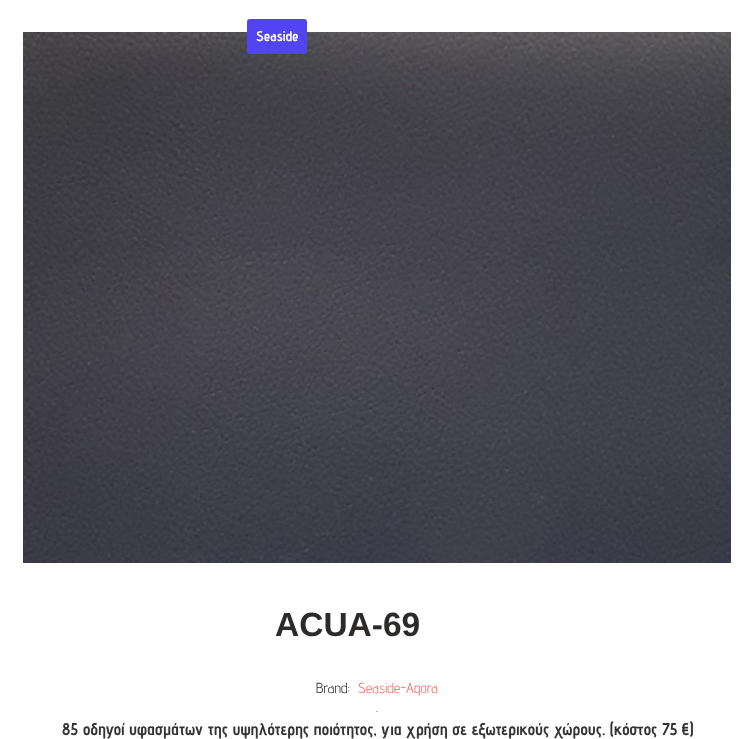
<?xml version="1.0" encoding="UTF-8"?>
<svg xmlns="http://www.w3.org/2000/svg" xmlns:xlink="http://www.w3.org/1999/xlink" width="754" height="739">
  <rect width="100%" height="100%" fill="#ffffff" />
  <image x="23" y="32" width="708" height="531" xlink:href="image1.png" />
  <rect x="247" y="19" width="60" height="35" rx="3" fill="#5244f2" />
  <text x="256" y="41" style="font-family: Advent Pro; font-size: 14px; font-weight: bold; fill: #ffffff">Seaside</text>
  <text x="275" y="636" style="font-family: Liberation Sans; font-size: 33.5px; font-weight: bold; fill: #2d2a2a">ACUA-69</text>
  <text x="316" y="693" style="font-family: Advent Pro; font-size: 14.5px; fill: #333333">Brand:</text>
  <text x="358" y="693" style="font-family: Advent Pro; font-size: 14.5px; fill: #f76b6a">Seaside-Agora</text>
  <text x="376" y="712" style="font-family: Advent Pro; font-size: 14.5px; fill: #333333">.</text>
  <text x="62" y="735" style="font-family: Advent Pro; font-size: 17px; font-weight: bold; fill: #333333">85 οδηγοί υφασμάτων της υψηλότερης ποιότητος, για χρήση σε εξωτερικούς χώρους. (κόστος 75 €)</text>
</svg>
